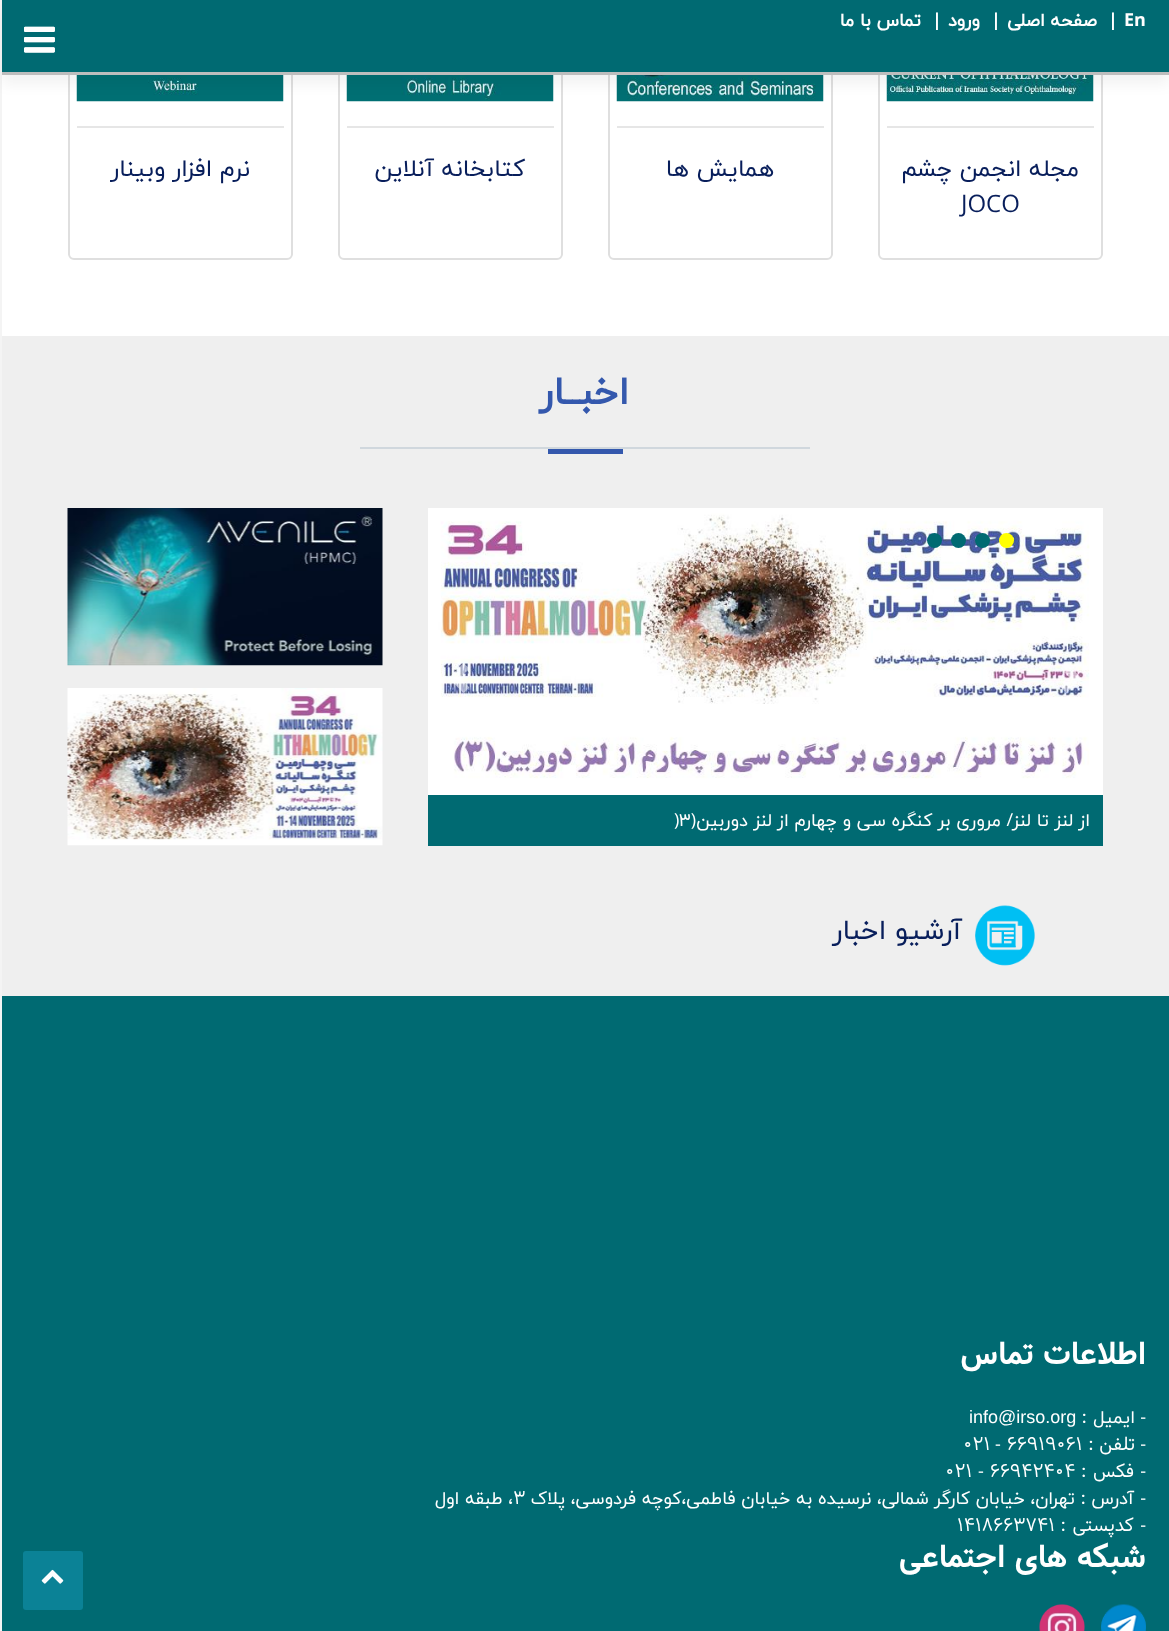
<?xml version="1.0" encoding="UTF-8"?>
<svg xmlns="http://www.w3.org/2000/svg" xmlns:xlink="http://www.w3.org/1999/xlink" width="1169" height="1631">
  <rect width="100%" height="100%" fill="#f4f4f4" />
  <rect x="2" y="75" width="1167" height="261" fill="#ffffff" />
  <rect x="879" y="-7" width="223" height="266" rx="5" fill="none" stroke="#dfdfdf" stroke-width="2" />
  <image x="886" y="75" width="208" height="27" xlink:href="image2.png" />
  <rect x="609" y="-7" width="223" height="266" rx="5" fill="none" stroke="#dfdfdf" stroke-width="2" />
  <image x="616" y="75" width="208" height="27" xlink:href="image3.png" />
  <rect x="339" y="-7" width="223" height="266" rx="5" fill="none" stroke="#dfdfdf" stroke-width="2" />
  <image x="346" y="75" width="208" height="27" xlink:href="image4.png" />
  <rect x="69" y="-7" width="223" height="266" rx="5" fill="none" stroke="#dfdfdf" stroke-width="2" />
  <image x="76" y="75" width="208" height="27" xlink:href="image5.png" />
  <rect x="2" y="9" width="1167" height="75" fill="#000000" fill-opacity="0.05" filter="blur(7px)" />
  <rect x="2" width="1167" height="72" fill="#006a72" />
  <rect x="2" y="72" width="1167" height="3" fill="#bdbdbd" />
  <image x="24" y="26" width="31" height="27" xlink:href="image12.png" />
  <image x="24" y="26" width="31" height="27" xlink:href="image1.png" />
  <rect x="887" y="126" width="207" height="2" fill="#e6e6e6" />
  <rect x="617" y="126" width="207" height="2" fill="#e6e6e6" />
  <rect x="347" y="126" width="207" height="2" fill="#e6e6e6" />
  <rect x="77" y="126" width="207" height="2" fill="#e6e6e6" />
  <rect x="2" y="336" width="1167" height="660" fill="#efefef" />
  <rect x="360" y="447" width="450" height="2" fill="#d0d7dd" />
  <rect x="548" y="449" width="75" height="5" fill="#3458ad" />
  <image x="428" y="508" width="675" height="287" xlink:href="image6.png" />
  <path d="M 1066.5 663 l -6 5.5 l 9.5 9.5 l -9.5 9.5 l 6 5.5 l 15 -15 z" fill="#ffffff" fill-opacity="0.5" />
  <path d="M 463.5 663 l -15 15 l 15 15 l 6 -5.5 l -9.5 -9.5 l 9.5 -9.5 z" fill="#ffffff" fill-opacity="0.5" />
  <circle cx="1006.5" cy="540.5" r="7.5" fill="#ffff00" />
  <circle cx="982.5" cy="540.5" r="7.5" fill="#006a72" />
  <circle cx="958.5" cy="540.5" r="7.5" fill="#006a72" />
  <circle cx="934.5" cy="540.5" r="7.5" fill="#006a72" />
  <rect x="428" y="795" width="675" height="51" fill="#006a72" />
  <image x="67" y="508" width="316" height="158" xlink:href="image7.png" />
  <image x="67" y="688" width="316" height="158" xlink:href="image8.png" />
  <image x="975" y="905" width="60" height="61" xlink:href="image9.png" />
  <rect x="2" y="996" width="1167" height="635" fill="#006a72" />
  <image x="1101" y="1604" width="45" height="27" xlink:href="image10.png" />
  <image x="1039" y="1604" width="46" height="27" xlink:href="image11.png" />
  <rect x="23" y="1551" width="60" height="59" rx="3" fill="#0b8296" />
  <image x="41" y="1569" width="23" height="15" xlink:href="image13.png" />
  <text x="1124" y="26" style="font-family: Open Sans; font-size: 18px; font-weight: bold; fill: #ffffff">En</text>
  <text x="1108" y="26" style="font-family: Open Sans; font-size: 18px; font-weight: bold; fill: #ffffff">|</text>
  <text x="1097" y="26" style="font-family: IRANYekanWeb; font-size: 18px; font-weight: bold; direction: rtl; fill: #ffffff">صفحه اصلی</text>
  <text x="1001" y="26" style="font-family: Open Sans; font-size: 18px; font-weight: bold; direction: rtl; fill: #ffffff">|</text>
  <text x="980" y="26" style="font-family: IRANYekanWeb; font-size: 18px; font-weight: bold; direction: rtl; fill: #ffffff">ورود</text>
  <text x="942" y="26" style="font-family: Open Sans; font-size: 18px; font-weight: bold; direction: rtl; fill: #ffffff">|</text>
  <text x="921" y="26" style="font-family: IRANYekanWeb; font-size: 18px; font-weight: bold; direction: rtl; fill: #ffffff">تماس با ما</text>
  <text x="1079" y="176" style="font-family: IRANYekanWeb; font-size: 24px; direction: rtl; fill: #081e5b">مجله انجمن چشم</text>
  <text x="961" y="212" style="font-family: Open Sans; font-size: 24px; fill: #081e5b">JOCO</text>
  <text x="774" y="176" style="font-family: IRANYekanWeb; font-size: 24px; direction: rtl; fill: #081e5b">همایش ها</text>
  <text x="525" y="176" style="font-family: IRANYekanWeb; font-size: 24px; direction: rtl; fill: #081e5b">کتابخانه آنلاین</text>
  <text x="250" y="176" style="font-family: IRANYekanWeb; font-size: 24px; direction: rtl; fill: #081e5b">نرم افزار وبینار</text>
  <text x="629" y="404" style="font-family: IRANYekanWeb; font-size: 39px; font-weight: bold; direction: rtl; fill: #3458ad">اخبــار</text>
  <text x="1013" y="826" style="font-family: Open Sans; font-size: 18px; direction: rtl; fill: #ffffff">/</text>
  <text x="1090" y="826" style="font-family: IRANYekanWeb; font-size: 18px; direction: rtl; fill: #ffffff">از لنز تا لنز</text>
  <text x="1001" y="826" style="font-family: IRANYekanWeb; font-size: 18px; direction: rtl; fill: #ffffff">مروری بر کنگره سی و چهارم از لنز دوربین</text>
  <text x="696" y="826" style="font-family: Open Sans; font-size: 18px; direction: rtl; fill: #ffffff">(</text>
  <text x="679" y="826" style="font-family: IRANYekanWeb; font-size: 18px; fill: #ffffff">۳</text>
  <text x="674" y="826" style="font-family: Open Sans; font-size: 18px; fill: #ffffff">)</text>
  <text x="962" y="939" style="font-family: IRANYekanWeb; font-size: 28px; direction: rtl; fill: #081e5b">آرشیو اخبار</text>
  <text x="1146" y="1364" style="font-family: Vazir; font-size: 30px; font-weight: bold; direction: rtl; fill: #ffffff">اطلاعات تماس</text>
  <text x="1146" y="1423" style="font-family: Open Sans; font-size: 18px; direction: rtl; fill: #ffffff">-</text>
  <text x="1135" y="1423" style="font-family: IRANYekanWeb; font-size: 18px; direction: rtl; fill: #ffffff">ایمیل</text>
  <text x="1087" y="1423" style="font-family: Vazir; font-size: 18px; direction: rtl; fill: #ffffff">:</text>
  <text x="969" y="1423" style="font-family: Liberation Sans; font-size: 18px; fill: #ffffff">info@irso.org</text>
  <text x="1146" y="1450" style="font-family: Open Sans; font-size: 18px; direction: rtl; fill: #ffffff">-</text>
  <text x="1135" y="1450" style="font-family: Vazir; font-size: 18px; direction: rtl; fill: #ffffff">تلفن :</text>
  <text x="1007" y="1450" style="font-family: Vazir; font-size: 18px; fill: #ffffff">66919061</text>
  <text x="995" y="1450" style="font-family: Open Sans; font-size: 18px; fill: #ffffff">-</text>
  <text x="963" y="1450" style="font-family: Vazir; font-size: 18px; fill: #ffffff">021</text>
  <text x="1146" y="1477" style="font-family: Open Sans; font-size: 18px; direction: rtl; fill: #ffffff">-</text>
  <text x="1134" y="1477" word-spacing="1" style="font-family: Vazir; font-size: 18px; direction: rtl; fill: #ffffff">فکس :</text>
  <text x="990" y="1477" style="font-family: Vazir; font-size: 18px; fill: #ffffff">66942404</text>
  <text x="978" y="1477" style="font-family: Open Sans; font-size: 18px; fill: #ffffff">-</text>
  <text x="945" y="1477" style="font-family: Vazir; font-size: 18px; fill: #ffffff">021</text>
  <text x="1146" y="1504" style="font-family: Open Sans; font-size: 18px; direction: rtl; fill: #ffffff">-</text>
  <text x="1134" y="1504" style="font-family: IRANYekanWeb; font-size: 18px; direction: rtl; fill: #ffffff">آدرس</text>
  <text x="1086" y="1504" style="font-family: Vazir; font-size: 18px; direction: rtl; fill: #ffffff">:</text>
  <text x="1075" y="1504" style="font-family: IRANYekanWeb; font-size: 18px; direction: rtl; fill: #ffffff">تهران، خيابان کارگر شمالی، نرسيده به خيابان فاطمی،کوچه فردوسی، پلاک</text>
  <text x="513" y="1504" style="font-family: Vazir; font-size: 18px; fill: #ffffff">3</text>
  <text x="513" y="1504" style="font-family: IRANYekanWeb; font-size: 18px; direction: rtl; fill: #ffffff">، طبقه اول</text>
  <text x="1146" y="1531" style="font-family: Open Sans; font-size: 18px; direction: rtl; fill: #ffffff">-</text>
  <text x="1134" y="1531" word-spacing="1" style="font-family: Vazir; font-size: 18px; direction: rtl; fill: #ffffff">کدپستی :</text>
  <text x="957" y="1531" style="font-family: Vazir; font-size: 18px; fill: #ffffff">1418663741</text>
  <text x="1146" y="1567" style="font-family: Vazir; font-size: 30px; font-weight: bold; direction: rtl; fill: #ffffff">شبکه های اجتماعی</text>
</svg>
